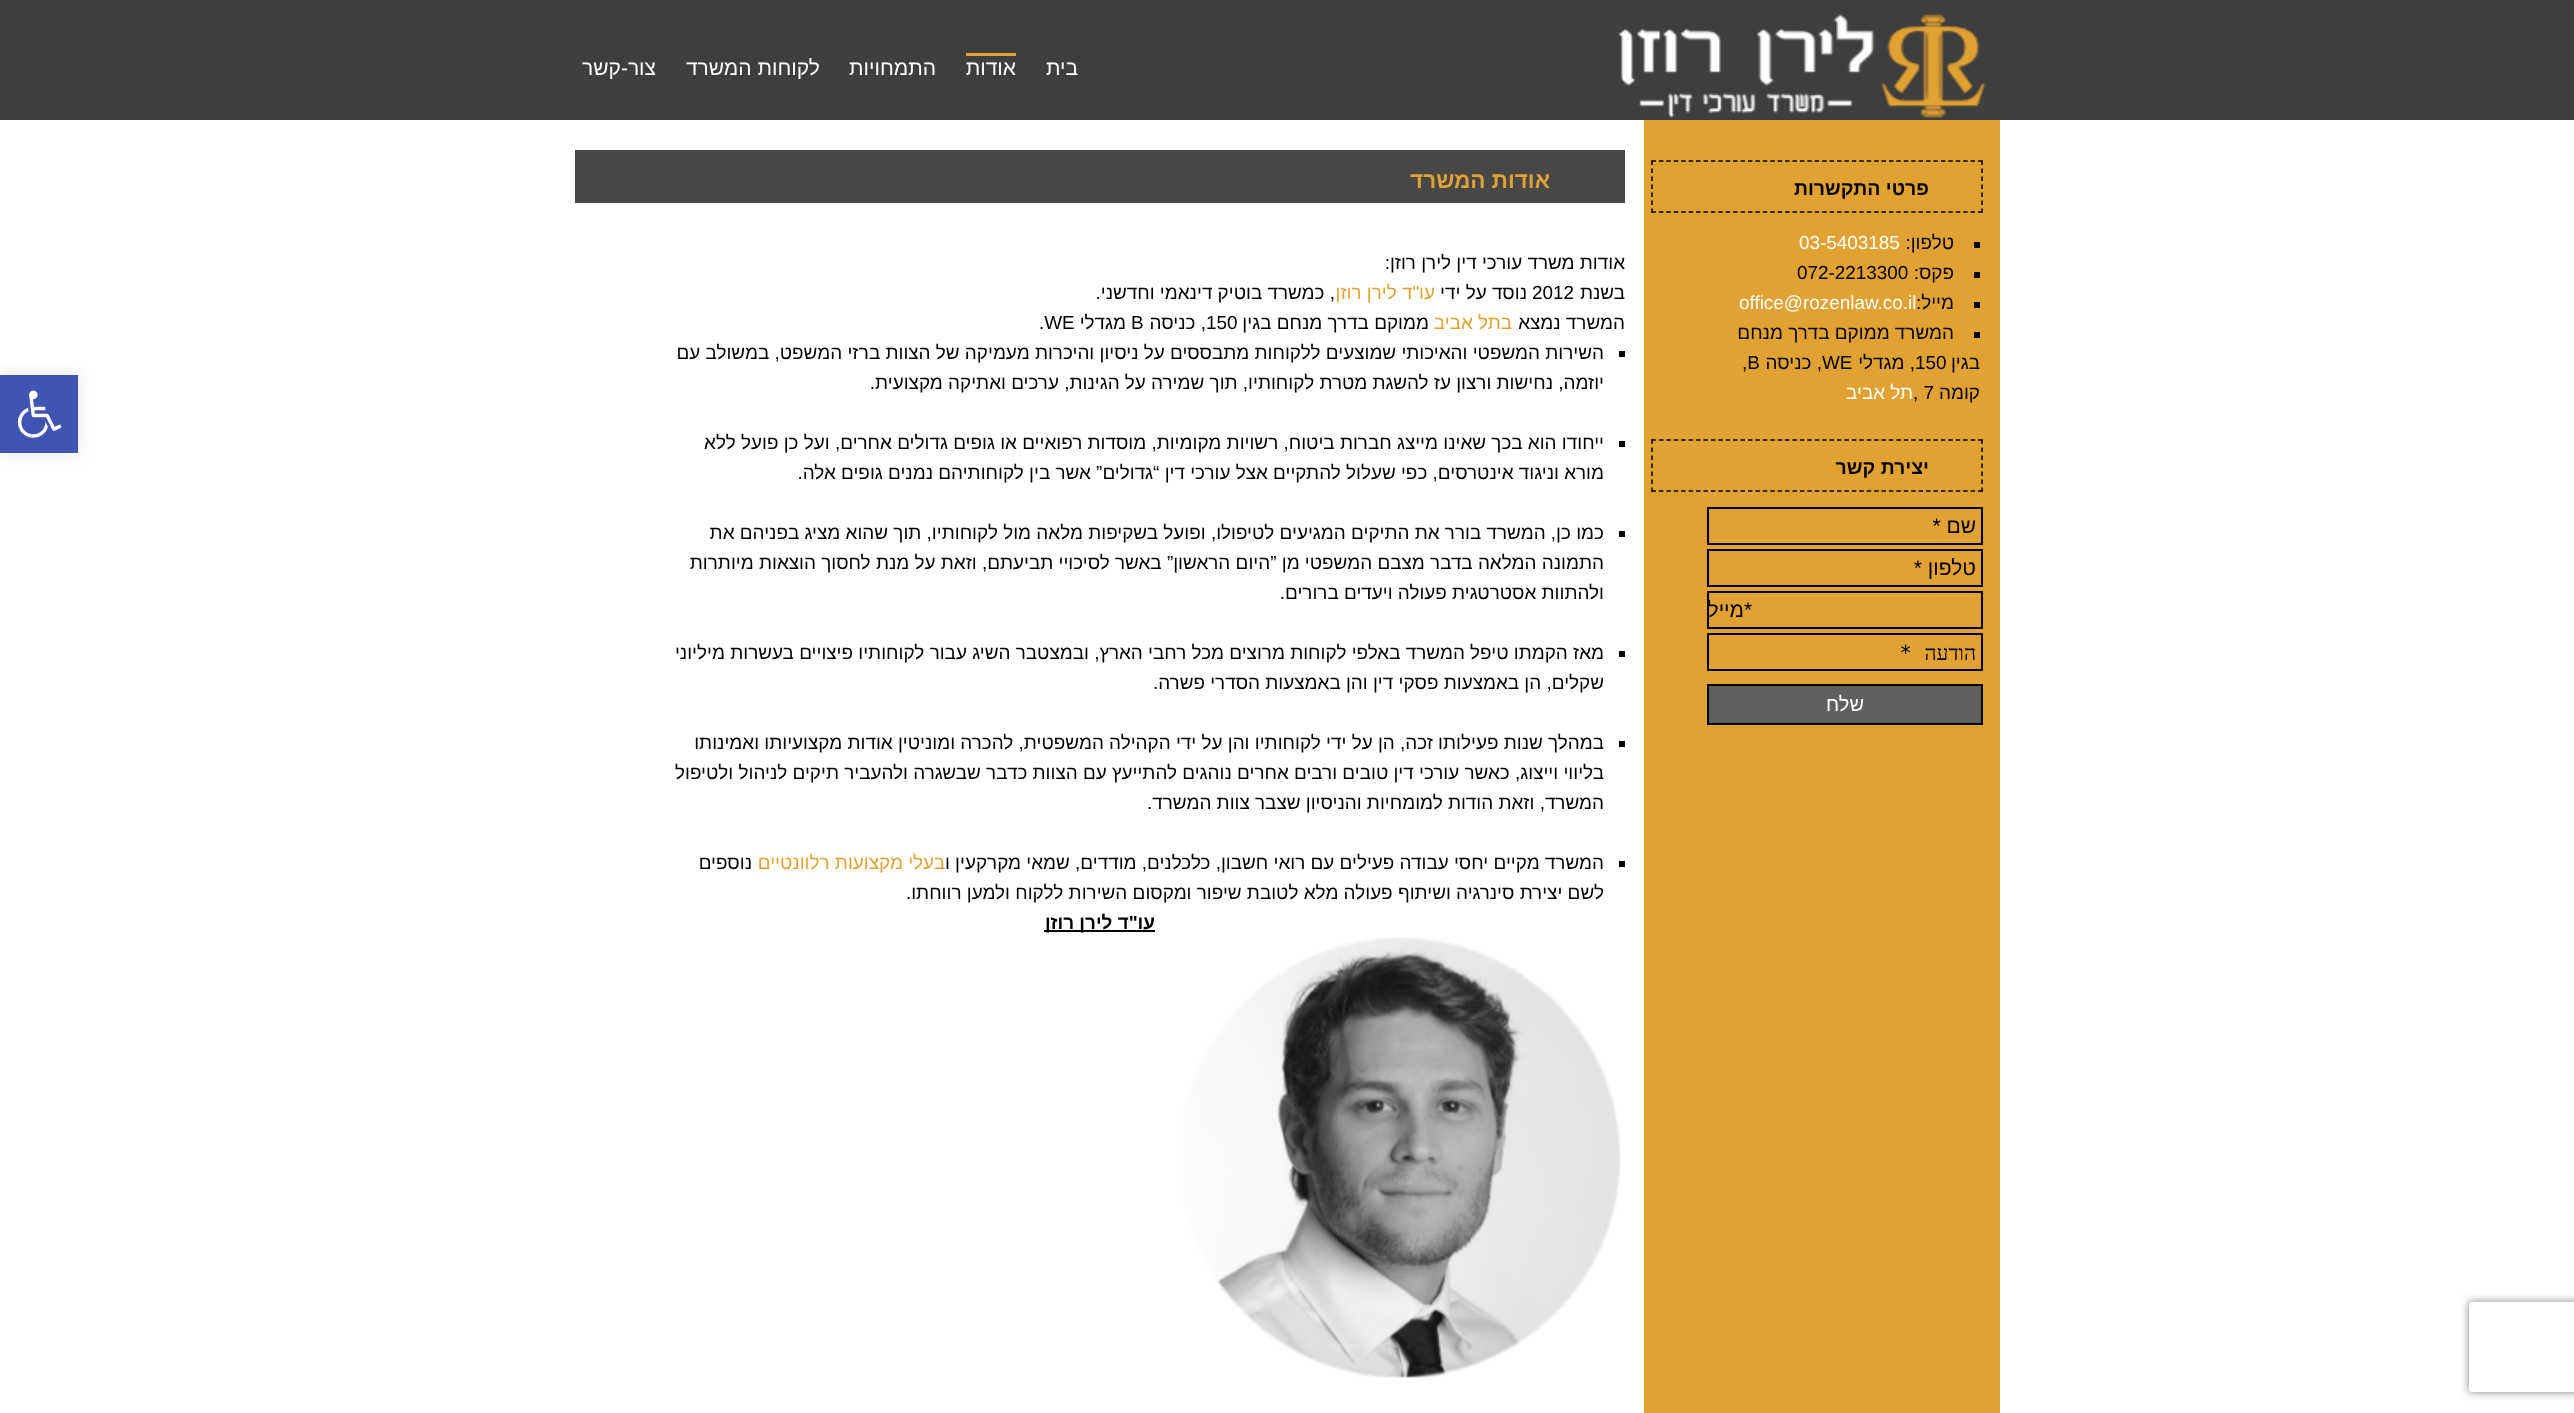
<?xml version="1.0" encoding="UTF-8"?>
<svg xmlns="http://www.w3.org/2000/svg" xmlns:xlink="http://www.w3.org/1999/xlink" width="2574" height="1413">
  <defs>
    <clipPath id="clip1"><path d="M 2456 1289 h 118 v 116 h -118 z m 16 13 h 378 c 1.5 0 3 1.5 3 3 v 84 c 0 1.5 -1.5 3 -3 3 h -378 c -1.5 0 -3 -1.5 -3 -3 v -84 c 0 -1.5 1.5 -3 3 -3 z" clip-rule="evenodd" /></clipPath>
    <clipPath id="clip2"><rect x="1709" y="597" width="268" height="24" /></clipPath>
  </defs>
  <rect width="100%" height="100%" fill="#ffffff" />
  <rect width="2574" height="120" fill="#3e3e3e" />
  <image x="1618" y="14" width="368" height="105" xlink:href="image1.png" />
  <rect x="966" y="53" width="50" height="3" fill="#e2a233" />
  <rect x="1644" y="120" width="356" height="1293" fill="#e2a233" />
  <path d="M 1651.5 161 h 331.5" fill="none" stroke="#000000" stroke-width="1.5" stroke-dasharray="4.5 2.92" />
  <path d="M 1982 160.5 v 52.5" fill="none" stroke="#000000" stroke-width="1.5" stroke-dasharray="4.5 3.5" />
  <path d="M 1651.5 212 h 331.5" fill="none" stroke="#000000" stroke-width="1.5" stroke-dasharray="4.5 2.92" />
  <path d="M 1652 160.5 v 52.5" fill="none" stroke="#000000" stroke-width="1.5" stroke-dasharray="4.5 3.5" />
  <rect x="1974" y="242" width="6" height="6" fill="#000000" />
  <rect x="1974" y="272" width="6" height="6" fill="#000000" />
  <rect x="1974" y="302" width="6" height="6" fill="#000000" />
  <rect x="1974" y="332" width="6" height="6" fill="#000000" />
  <path d="M 1651.5 440 h 331.5" fill="none" stroke="#000000" stroke-width="1.5" stroke-dasharray="4.5 2.92" />
  <path d="M 1982 439.5 v 52.5" fill="none" stroke="#000000" stroke-width="1.5" stroke-dasharray="4.5 3.5" />
  <path d="M 1651.5 491 h 331.5" fill="none" stroke="#000000" stroke-width="1.5" stroke-dasharray="4.5 2.92" />
  <path d="M 1652 439.5 v 52.5" fill="none" stroke="#000000" stroke-width="1.5" stroke-dasharray="4.5 3.5" />
  <rect x="1708" y="508" width="274" height="36" fill="none" stroke="#000000" stroke-width="2" />
  <rect x="1708" y="550" width="274" height="36" fill="none" stroke="#000000" stroke-width="2" />
  <rect x="1708" y="592" width="274" height="36" fill="none" stroke="#000000" stroke-width="2" />
  <rect x="1708" y="634" width="274" height="36" fill="none" stroke="#000000" stroke-width="2" />
  <rect x="1708" y="685" width="274" height="39" fill="#606060" stroke="#000000" stroke-width="2" />
  <rect x="575" y="150" width="1050" height="53" fill="#474747" />
  <rect x="1619" y="351" width="6" height="6" fill="#000000" />
  <rect x="1619" y="441" width="6" height="6" fill="#000000" />
  <rect x="1619" y="531" width="6" height="6" fill="#000000" />
  <rect x="1619" y="651" width="6" height="6" fill="#000000" />
  <rect x="1619" y="741" width="6" height="6" fill="#000000" />
  <rect x="1619" y="861" width="6" height="6" fill="#000000" />
  <rect x="1044" y="930" width="111" height="2" fill="#000000" />
  <image x="1183" y="937" width="438" height="441" xlink:href="image2.png" />
  <rect y="375" width="78" height="78" fill="#000000" fill-opacity="0.1" filter="blur(7.5px)" />
  <rect y="375" width="78" height="78" fill="#4054b2" />
  <image x="17" y="390" width="45" height="48" xlink:href="image3.png" />
  <g clip-path="url(#clip1)">
    <rect x="2469" y="1302" width="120" height="90" rx="3" fill="#808080" filter="blur(4px)" />
  </g>
  <text x="1078" y="75" style="font-family: Liberation Sans; font-size: 21px; direction: rtl; fill: #ffffff">בית</text>
  <text x="1016" y="75" style="font-family: Liberation Sans; font-size: 21px; direction: rtl; fill: #ffffff">אודות</text>
  <text x="936" y="75" style="font-family: Liberation Sans; font-size: 21px; direction: rtl; fill: #ffffff">התמחויות</text>
  <text x="820" y="75" style="font-family: Liberation Sans; font-size: 21px; direction: rtl; fill: #ffffff">לקוחות המשרד</text>
  <text x="656" y="75" style="font-family: Liberation Sans; font-size: 21px; direction: rtl; fill: #ffffff">צור-קשר</text>
  <text x="1929" y="195" style="font-family: Liberation Sans; font-size: 19.5px; font-weight: bold; direction: rtl; fill: #000000">פרטי התקשרות</text>
  <text x="1954" y="249" style="font-family: Liberation Sans; font-size: 18.9px; direction: rtl; fill: #000000">טלפון:</text>
  <text x="1799" y="249" style="font-family: Liberation Sans; font-size: 18.9px; fill: #ffffff">03-5403185</text>
  <text x="1954" y="279" style="font-family: Liberation Sans; font-size: 18.9px; direction: rtl; fill: #000000">פקס:</text>
  <text x="1797" y="279" style="font-family: Liberation Sans; font-size: 18.9px; fill: #000000">072-2213300</text>
  <text x="1954" y="309" style="font-family: Liberation Sans; font-size: 18.9px; direction: rtl; fill: #000000">מייל:</text>
  <text x="1739" y="309" style="font-family: Liberation Sans; font-size: 18.9px; fill: #ffffff">office@rozenlaw.co.il</text>
  <text x="1954" y="339" style="font-family: Liberation Sans; font-size: 18.9px; direction: rtl; fill: #000000">המשרד ממוקם בדרך מנחם</text>
  <text x="1980" y="369" style="font-family: Liberation Sans; font-size: 18.9px; direction: rtl; fill: #000000">בגין</text>
  <text x="1915" y="369" style="font-family: Liberation Sans; font-size: 18.9px; fill: #000000">150</text>
  <text x="1915" y="369" style="font-family: Liberation Sans; font-size: 18.9px; direction: rtl; fill: #000000">, מגדלי</text>
  <text x="1822" y="369" style="font-family: Liberation Sans; font-size: 18.9px; fill: #000000">WE</text>
  <text x="1822" y="369" style="font-family: Liberation Sans; font-size: 18.9px; direction: rtl; fill: #000000">, כניסה</text>
  <text x="1742" y="369" style="font-family: Liberation Sans; font-size: 18.9px; fill: #000000">,B</text>
  <text x="1980" y="399" style="font-family: Liberation Sans; font-size: 18.9px; direction: rtl; fill: #000000">קומה</text>
  <text x="1913" y="399" style="font-family: Liberation Sans; font-size: 18.9px; fill: #000000">, 7</text>
  <text x="1913" y="399" style="font-family: Liberation Sans; font-size: 18.9px; direction: rtl; fill: #ffffff">תל אביב</text>
  <text x="1929" y="474" style="font-family: Liberation Sans; font-size: 19.5px; font-weight: bold; direction: rtl; fill: #000000">יצירת קשר</text>
  <text x="1976" y="533" style="font-family: Liberation Sans; font-size: 21px; direction: rtl; fill: #000000">שם *</text>
  <text x="1976" y="575" style="font-family: Liberation Sans; font-size: 21px; direction: rtl; fill: #000000">טלפון *</text>
  <text x="1744" y="617" style="font-family: Liberation Sans; font-size: 21px; fill: #000000">*</text>
  <g clip-path="url(#clip2)">
    <text x="1744" y="617" style="font-family: Liberation Sans; font-size: 21px; direction: rtl; fill: #000000">מייל</text>
  </g>
  <text x="1976" y="660" style="font-family: Liberation Serif; font-size: 21px; direction: rtl; fill: #000000">הודעה</text>
  <text x="1912" y="660" style="font-family: DejaVu Sans Mono; font-size: 21px; direction: rtl; fill: #000000">*</text>
  <text x="1864" y="711" style="font-family: Liberation Sans; font-size: 20px; direction: rtl; fill: #ffffff">שלח</text>
  <text x="1550" y="188" style="font-family: Liberation Sans; font-size: 22.5px; font-weight: bold; direction: rtl; fill: #e2a233">אודות המשרד</text>
  <text x="1625" y="269" style="font-family: Liberation Sans; font-size: 18.9px; direction: rtl; fill: #000000">אודות משרד עורכי דין לירן רוזן:</text>
  <text x="1625" y="299" style="font-family: Liberation Sans; font-size: 18.9px; direction: rtl; fill: #000000">בשנת</text>
  <text x="1532" y="299" style="font-family: Liberation Sans; font-size: 18.9px; fill: #000000">2012</text>
  <text x="1527" y="299" style="font-family: Liberation Sans; font-size: 18.9px; direction: rtl; fill: #000000">נוסד על ידי</text>
  <text x="1435" y="299" style="font-family: Liberation Sans; font-size: 18.9px; direction: rtl; fill: #e2a233">עו"ד לירן רוזן</text>
  <text x="1335" y="299" style="font-family: Liberation Sans; font-size: 18.9px; direction: rtl; fill: #000000">, כמשרד בוטיק דינאמי וחדשני.</text>
  <text x="1625" y="329" style="font-family: Liberation Sans; font-size: 18.9px; direction: rtl; fill: #000000">המשרד נמצא</text>
  <text x="1512" y="329" style="font-family: Liberation Sans; font-size: 18.9px; direction: rtl; fill: #e2a233">בתל אביב</text>
  <text x="1429" y="329" style="font-family: Liberation Sans; font-size: 18.9px; direction: rtl; fill: #000000">ממוקם בדרך מנחם בגין</text>
  <text x="1206" y="329" style="font-family: Liberation Sans; font-size: 18.9px; fill: #000000">150</text>
  <text x="1206" y="329" style="font-family: Liberation Sans; font-size: 18.9px; direction: rtl; fill: #000000">, כניסה</text>
  <text x="1131" y="329" style="font-family: Liberation Sans; font-size: 18.9px; fill: #000000">B</text>
  <text x="1126" y="329" style="font-family: Liberation Sans; font-size: 18.9px; direction: rtl; fill: #000000">מגדלי</text>
  <text x="1039" y="329" style="font-family: Liberation Sans; font-size: 18.9px; fill: #000000">.WE</text>
  <text x="1604" y="359" style="font-family: Liberation Sans; font-size: 18.9px; direction: rtl; fill: #000000">השירות המשפטי והאיכותי שמוצעים ללקוחות מתבססים על ניסיון והיכרות מעמיקה של הצוות ברזי המשפט, במשולב עם</text>
  <text x="1604" y="389" style="font-family: Liberation Sans; font-size: 18.9px; direction: rtl; fill: #000000">יוזמה, נחישות ורצון עז להשגת מטרת לקוחותיו, תוך שמירה על הגינות, ערכים ואתיקה מקצועית.</text>
  <text x="1604" y="449" style="font-family: Liberation Sans; font-size: 18.9px; direction: rtl; fill: #000000">ייחודו הוא בכך שאינו מייצג חברות ביטוח, רשויות מקומיות, מוסדות רפואיים או גופים גדולים אחרים, ועל כן פועל ללא</text>
  <text x="1604" y="479" style="font-family: Liberation Sans; font-size: 18.9px; direction: rtl; fill: #000000">מורא וניגוד אינטרסים, כפי שעלול להתקיים אצל עורכי דין “גדולים” אשר בין לקוחותיהם נמנים גופים אלה.</text>
  <text x="1604" y="539" style="font-family: Liberation Sans; font-size: 18.9px; direction: rtl; fill: #000000">כמו כן, המשרד בורר את התיקים המגיעים לטיפולו, ופועל בשקיפות מלאה מול לקוחותיו, תוך שהוא מציג בפניהם את</text>
  <text x="1604" y="569" style="font-family: Liberation Sans; font-size: 18.9px; direction: rtl; fill: #000000">התמונה המלאה בדבר מצבם המשפטי מן ”היום הראשון” באשר לסיכויי תביעתם, וזאת על מנת לחסוך הוצאות מיותרות</text>
  <text x="1604" y="599" style="font-family: Liberation Sans; font-size: 18.9px; direction: rtl; fill: #000000">ולהתוות אסטרטגית פעולה ויעדים ברורים.</text>
  <text x="1604" y="659" style="font-family: Liberation Sans; font-size: 18.9px; direction: rtl; fill: #000000">מאז הקמתו טיפל המשרד באלפי לקוחות מרוצים מכל רחבי הארץ, ובמצטבר השיג עבור לקוחותיו פיצויים בעשרות מיליוני</text>
  <text x="1604" y="689" style="font-family: Liberation Sans; font-size: 18.9px; direction: rtl; fill: #000000">שקלים, הן באמצעות פסקי דין והן באמצעות הסדרי פשרה.</text>
  <text x="1604" y="749" style="font-family: Liberation Sans; font-size: 18.9px; direction: rtl; fill: #000000">במהלך שנות פעילותו זכה, הן על ידי לקוחותיו והן על ידי הקהילה המשפטית, להכרה ומוניטין אודות מקצועיותו ואמינותו</text>
  <text x="1604" y="779" style="font-family: Liberation Sans; font-size: 18.9px; direction: rtl; fill: #000000">בליווי וייצוג, כאשר עורכי דין טובים ורבים אחרים נוהגים להתייעץ עם הצוות כדבר שבשגרה ולהעביר תיקים לניהול ולטיפול</text>
  <text x="1604" y="809" style="font-family: Liberation Sans; font-size: 18.9px; direction: rtl; fill: #000000">המשרד, וזאת הודות למומחיות והניסיון שצבר צוות המשרד.</text>
  <text x="1604" y="869" style="font-family: Liberation Sans; font-size: 18.9px; direction: rtl; fill: #000000">המשרד מקיים יחסי עבודה פעילים עם רואי חשבון, כלכלנים, מודדים, שמאי מקרקעין ו</text>
  <text x="945" y="869" style="font-family: Liberation Sans; font-size: 18.9px; direction: rtl; fill: #e2a233">בעלי מקצועות רלוונטיים</text>
  <text x="752" y="869" style="font-family: Liberation Sans; font-size: 18.9px; direction: rtl; fill: #000000">נוספים</text>
  <text x="1604" y="899" style="font-family: Liberation Sans; font-size: 18.9px; direction: rtl; fill: #000000">לשם יצירת סינרגיה ושיתוף פעולה מלא לטובת שיפור ומקסום השירות ללקוח ולמען רווחתו.</text>
  <text x="1155" y="929" style="font-family: Liberation Sans; font-size: 18.9px; font-weight: bold; direction: rtl; fill: #000000">עו"ד לירן רוזן</text>
</svg>
